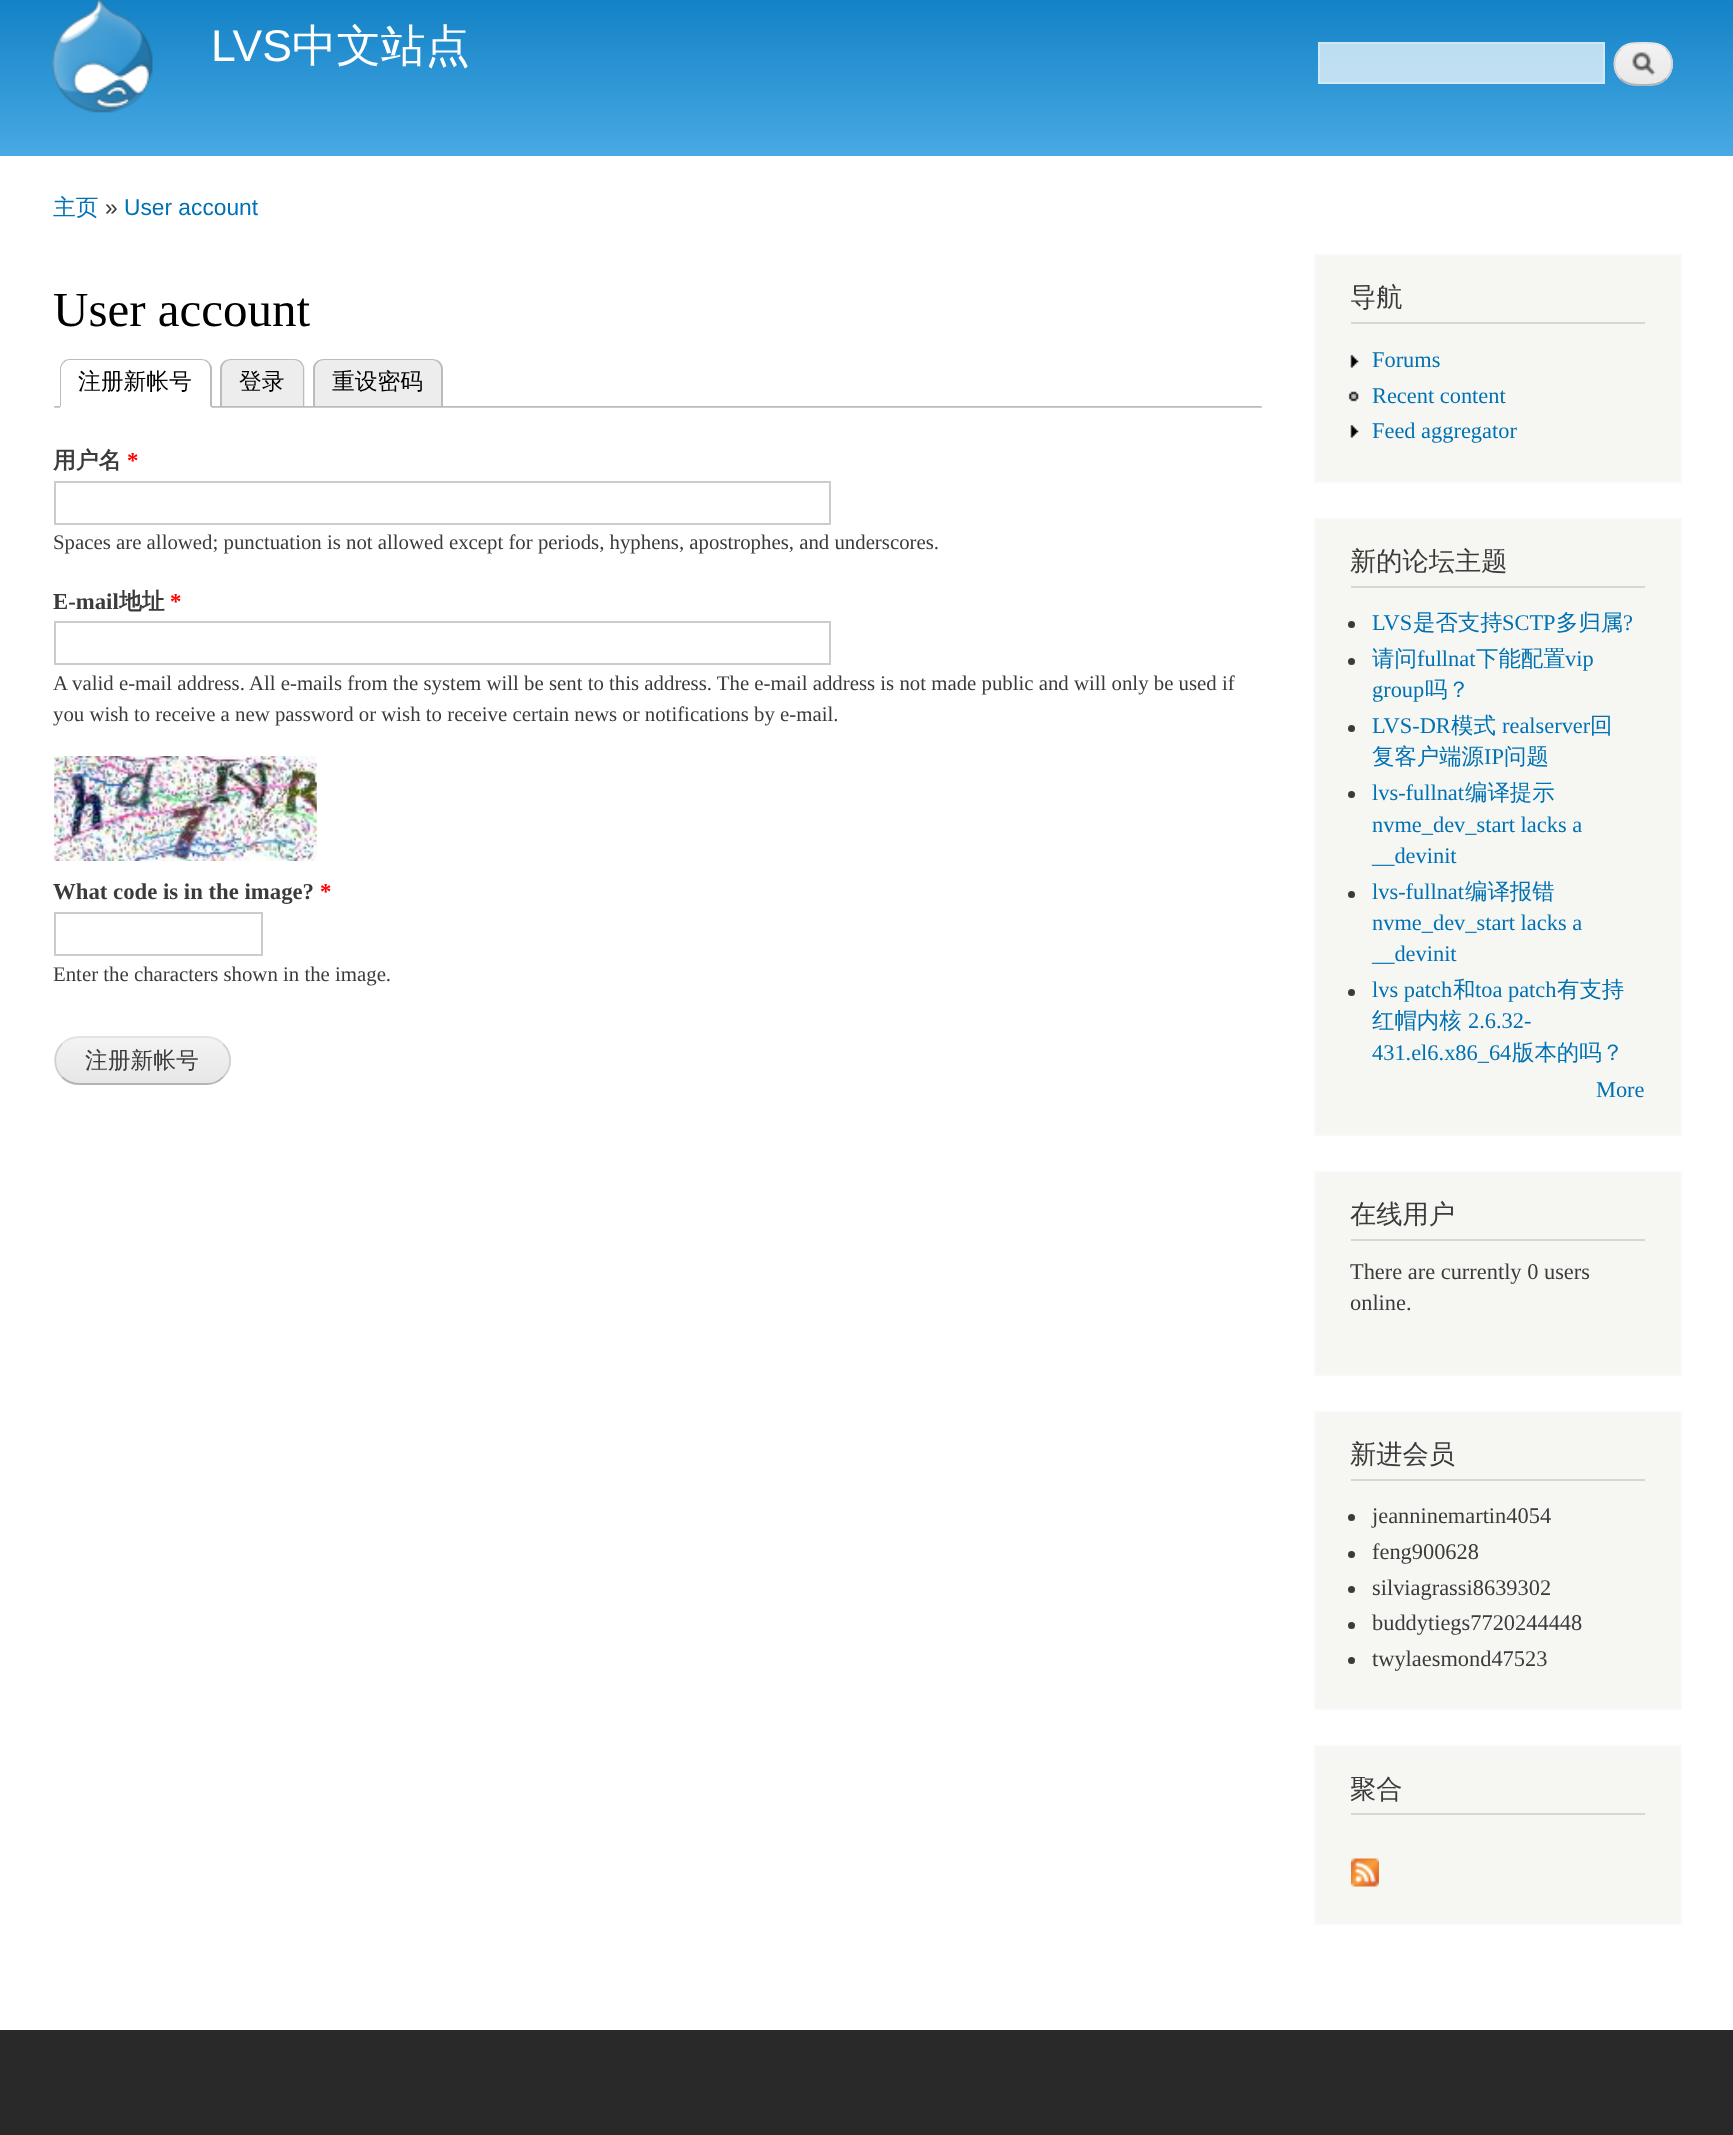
<?xml version="1.0" encoding="UTF-8"?>
<svg xmlns="http://www.w3.org/2000/svg" xmlns:xlink="http://www.w3.org/1999/xlink" width="1733" height="2135">
  <defs>
    <linearGradient id="g1" gradientUnits="userSpaceOnUse" x1="867" y1="-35" x2="867" y2="156"><stop offset="0" stop-color="#0779bf" /><stop offset="1" stop-color="#48a9e4" /></linearGradient>
    <linearGradient id="g2" gradientUnits="userSpaceOnUse" x1="867" y1="-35" x2="867" y2="156"><stop offset="0" stop-color="#b5d7ec" /><stop offset="1" stop-color="#c8e5f7" /></linearGradient>
  </defs>
  <rect width="100%" height="100%" fill="#ffffff" />
  <rect width="1733" height="156" fill="url(#g1)" />
  <rect x="1318" y="42" width="287" height="42" fill="url(#g2)" />
  <image x="52" y="0" width="101" height="113" xlink:href="image1.png" />
  <rect x="1319" y="43" width="285" height="40" fill="none" stroke="#ffffff" stroke-opacity="0.3" stroke-width="2" />
  <image x="1613" y="43" width="60" height="43" xlink:href="image2.png" />
  <path d="M 1620.5 49 c 6.5 -6.5 14.5 -6 22.5 -6 c 8.5 0 16.5 -0.5 23 6" fill="none" stroke="#e4e4e4" stroke-width="1.8" />
  <path d="M 1666 49 c 8 8 8 21.5 0 29.5" fill="none" stroke="#d2d2d2" stroke-width="1.8" />
  <path d="M 1666 78.5 c -6.5 6.5 -14.5 6.5 -23 6.5 c -8 0 -16 0 -22.5 -6.5" fill="none" stroke="#b4b4b4" stroke-width="1.8" />
  <path d="M 1620.5 78.5 c -8 -8 -8 -21.5 0 -29.5" fill="none" stroke="#d2d2d2" stroke-width="1.8" />
  <image x="54" y="406" width="1208" height="2" xlink:href="image3.png" />
  <path d="M 71 359 h 130 c 6 0 11 5 11 11 v 38 h -152 v -38 c 0 -6 5 -11 11 -11 z" fill="#ffffff" />
  <path d="M 70 359 c -3 0 -6 1 -7 3 l 1 1 c 1 -2 3 -3 6 -3 h 131 c 3 0 5 1 7 3 l 1 -1 c -2 -2 -5 -3 -8 -3 z" fill="#bbbbbb" />
  <path d="M 209 362 c 1 1 2 3 3 5 v 41 l -2 -2 v -37 c 0 -2 -1 -5 -2 -6 z" fill="#bbbbbb" />
  <path d="M 212 408 h -152 l 1 -2 h 149 z" fill="#ffffff" />
  <path d="M 63 362 c -2 2 -3 4 -3 7 v 38 l 1 -1 v -37 c 0 -2 1 -5 3 -6 z" fill="#bbbbbb" />
  <path d="M 232 359 h 62 c 6 0 11 5 11 11 v 36 h -84 v -36 c 0 -6 5 -11 11 -11 z" fill="#ededed" />
  <path d="M 231 359 h 63 c 6 0 10 4 10 10 v 37 h -84 v -37 c 0 -6 5 -10 11 -10 z m 0 1 h 63 c 5 0 9 4 9 9 v 37 h -81 v -37 c 0 -5 4 -9 9 -9 z" fill="#bbbbbb" fill-rule="evenodd" />
  <path d="M 324 359 h 108 c 6 0 11 5 11 11 v 36 h -130 v -36 c 0 -6 5 -11 11 -11 z" fill="#ededed" />
  <path d="M 324 359 h 108 c 6 0 11 4 11 10 v 37 h -130 v -37 c 0 -6 5 -10 11 -10 z m 0 1 h 108 c 5 0 9 4 9 9 v 37 h -126 v -37 c 0 -5 4 -9 9 -9 z" fill="#bbbbbb" fill-rule="evenodd" />
  <rect x="55" y="482" width="775" height="42" fill="none" stroke="#cccccc" stroke-width="2" />
  <rect x="55" y="622" width="775" height="42" fill="none" stroke="#cccccc" stroke-width="2" />
  <image x="54" y="756" width="263" height="105" xlink:href="image4.png" />
  <rect x="55" y="913" width="207" height="42" fill="none" stroke="#cccccc" stroke-width="2" />
  <image x="54" y="1038" width="177" height="47" xlink:href="image5.png" />
  <path d="M 62 1044 c 4.5 -4.5 10.5 -7 17 -7 h 127.5 c 6.5 0 12.5 2.5 16.5 7" fill="none" stroke="#e4e4e4" stroke-width="1.8" />
  <path d="M 223 1044 c 9.5 9 9.5 24 0 33" fill="none" stroke="#d2d2d2" stroke-width="1.8" />
  <path d="M 223 1077 c -4 4.5 -10 7 -16.5 7 h -127.5 c -6.5 0 -12.5 -2.5 -17 -7" fill="none" stroke="#b4b4b4" stroke-width="1.8" />
  <path d="M 62 1077 c -9 -9 -9 -24 0 -33" fill="none" stroke="#d2d2d2" stroke-width="1.8" />
  <rect x="1315" y="255" width="366" height="227" fill="#f6f6f2" stroke="#f9f9f9" stroke-width="2" />
  <rect x="1351" y="322" width="294" height="2" fill="#d6d6d6" />
  <image x="1350" y="355" width="9" height="13" xlink:href="image6.png" />
  <image x="1348" y="391" width="11" height="11" xlink:href="image7.png" />
  <image x="1350" y="425" width="9" height="13" xlink:href="image6.png" />
  <rect x="1315" y="519" width="366" height="616" fill="#f6f6f2" stroke="#f9f9f9" stroke-width="2" />
  <rect x="1351" y="586" width="294" height="2" fill="#d6d6d6" />
  <circle cx="1351.5" cy="624.5" r="3.5" fill="#3b3b3b" />
  <circle cx="1351.5" cy="661.5" r="3.5" fill="#3b3b3b" />
  <circle cx="1351.5" cy="728.5" r="3.5" fill="#3b3b3b" />
  <circle cx="1351.5" cy="794.5" r="3.5" fill="#3b3b3b" />
  <circle cx="1351.5" cy="894.5" r="3.5" fill="#3b3b3b" />
  <circle cx="1351.5" cy="992.5" r="3.5" fill="#3b3b3b" />
  <rect x="1315" y="1172" width="366" height="203" fill="#f6f6f2" stroke="#f9f9f9" stroke-width="2" />
  <rect x="1351" y="1239" width="294" height="2" fill="#d6d6d6" />
  <rect x="1315" y="1412" width="366" height="297" fill="#f6f6f2" stroke="#f9f9f9" stroke-width="2" />
  <rect x="1351" y="1479" width="294" height="2" fill="#d6d6d6" />
  <circle cx="1351.5" cy="1517.5" r="3.5" fill="#3b3b3b" />
  <circle cx="1351.5" cy="1554.5" r="3.5" fill="#3b3b3b" />
  <circle cx="1351.5" cy="1589.5" r="3.5" fill="#3b3b3b" />
  <circle cx="1351.5" cy="1625.5" r="3.5" fill="#3b3b3b" />
  <circle cx="1351.5" cy="1660.5" r="3.5" fill="#3b3b3b" />
  <rect x="1315" y="1746" width="366" height="178" fill="#f6f6f2" stroke="#f9f9f9" stroke-width="2" />
  <rect x="1351" y="1813" width="294" height="2" fill="#d6d6d6" />
  <image x="1351" y="1858" width="28" height="29" xlink:href="image8.png" />
  <rect y="2030" width="1733" height="105" fill="#292929" />
  <text x="211" y="61" style="font-family: Liberation Sans; font-size: 44.5px; fill: #fffeff">LVS</text>
  <text x="292" y="61" style="font-family: WenQuanYi Zen Hei; font-size: 44.5px; font-weight: 500; fill: #fffeff">中文站点</text>
  <text x="53" y="215" style="font-family: WenQuanYi Zen Hei; font-size: 22.75px; font-weight: 500; fill: #0071b3">主页</text>
  <text x="105" y="215" style="font-family: Liberation Sans; font-size: 22.75px; fill: #3b3b3b">»</text>
  <text x="124" y="215" style="font-family: Liberation Sans; font-size: 22.75px; fill: #0071b3">User account</text>
  <text x="53" y="326" style="font-family: Liberation Serif; font-size: 49px; fill: #000000">User account</text>
  <text x="78" y="389" style="font-family: WenQuanYi Zen Hei; font-size: 22.75px; font-weight: 500; fill: #000000">注册新帐号</text>
  <text x="239" y="389" style="font-family: WenQuanYi Zen Hei; font-size: 22.75px; font-weight: 500; fill: #000000">登录</text>
  <text x="332" y="389" style="font-family: WenQuanYi Zen Hei; font-size: 22.75px; font-weight: 500; fill: #000000">重设密码</text>
  <text x="53" y="468" style="font-family: WenQuanYi Zen Hei; font-size: 22.75px; font-weight: bold; fill: #3b3b3b">用户名</text>
  <text x="127" y="468" style="font-family: Liberation Serif; font-size: 22.75px; font-weight: bold; fill: #ff0000">*</text>
  <text x="53" y="549" style="font-family: Liberation Serif; font-size: 20.82px; fill: #3b3b3b">Spaces are allowed; punctuation is not allowed except for periods, hyphens, apostrophes, and underscores.</text>
  <text x="53" y="609" style="font-family: Liberation Serif; font-size: 22.75px; font-weight: bold; fill: #3b3b3b">E-mail</text>
  <text x="119" y="609" style="font-family: WenQuanYi Zen Hei; font-size: 22.75px; font-weight: bold; fill: #3b3b3b">地址</text>
  <text x="170" y="609" style="font-family: Liberation Serif; font-size: 22.75px; font-weight: bold; fill: #ff0000">*</text>
  <text x="53" y="690" style="font-family: Liberation Serif; font-size: 20.82px; fill: #3b3b3b">A valid e-mail address. All e-mails from the system will be sent to this address. The e-mail address is not made public and will only be used if</text>
  <text x="53" y="721" style="font-family: Liberation Serif; font-size: 20.82px; fill: #3b3b3b">you wish to receive a new password or wish to receive certain news or notifications by e-mail.</text>
  <text x="53" y="899" style="font-family: Liberation Serif; font-size: 22.75px; font-weight: bold; fill: #3b3b3b">What code is in the image?</text>
  <text x="320" y="899" style="font-family: Liberation Serif; font-size: 22.75px; font-weight: bold; fill: #ff0000">*</text>
  <text x="53" y="981" style="font-family: Liberation Serif; font-size: 20.82px; fill: #3b3b3b">Enter the characters shown in the image.</text>
  <text x="85" y="1068" style="font-family: WenQuanYi Zen Hei; font-size: 22.75px; font-weight: 500; fill: #3b3b3b">注册新帐号</text>
  <text x="1350" y="306" style="font-family: WenQuanYi Zen Hei; font-size: 26.25px; font-weight: 500; fill: #3b3b3b">导航</text>
  <text x="1372" y="367" style="font-family: Liberation Serif; font-size: 22.4px; fill: #0071b3">Forums</text>
  <text x="1372" y="403" style="font-family: Liberation Serif; font-size: 22.4px; fill: #0071b3">Recent content</text>
  <text x="1372" y="438" style="font-family: Liberation Serif; font-size: 22.4px; fill: #0071b3">Feed aggregator</text>
  <text x="1350" y="570" style="font-family: WenQuanYi Zen Hei; font-size: 26.25px; font-weight: 500; fill: #3b3b3b">新的论坛主题</text>
  <text x="1372" y="630" style="font-family: Liberation Serif; font-size: 22.4px; fill: #0071b3">LVS</text>
  <text x="1413" y="630" style="font-family: WenQuanYi Zen Hei; font-size: 22.4px; font-weight: 500; fill: #0071b3">是否支持</text>
  <text x="1502" y="630" style="font-family: Liberation Serif; font-size: 22.4px; fill: #0071b3">SCTP</text>
  <text x="1556" y="630" style="font-family: WenQuanYi Zen Hei; font-size: 22.4px; font-weight: 500; fill: #0071b3">多归属</text>
  <text x="1623" y="630" style="font-family: Liberation Serif; font-size: 22.4px; fill: #0071b3">?</text>
  <text x="1372" y="666" style="font-family: WenQuanYi Zen Hei; font-size: 22.4px; font-weight: 500; fill: #0071b3">请问</text>
  <text x="1417" y="666" style="font-family: Liberation Serif; font-size: 22.4px; fill: #0071b3">fullnat</text>
  <text x="1476" y="666" style="font-family: WenQuanYi Zen Hei; font-size: 22.4px; font-weight: 500; fill: #0071b3">下能配置</text>
  <text x="1565" y="666" style="font-family: Liberation Serif; font-size: 22.4px; fill: #0071b3">vip</text>
  <text x="1372" y="697" style="font-family: Liberation Serif; font-size: 22.4px; fill: #0071b3">group</text>
  <text x="1425" y="697" style="font-family: WenQuanYi Zen Hei; font-size: 22.4px; font-weight: 500; fill: #0071b3">吗？</text>
  <text x="1372" y="733" style="font-family: Liberation Serif; font-size: 22.4px; fill: #0071b3">LVS-DR</text>
  <text x="1451" y="733" style="font-family: WenQuanYi Zen Hei; font-size: 22.4px; font-weight: 500; fill: #0071b3">模式</text>
  <text x="1502" y="733" style="font-family: Liberation Serif; font-size: 22.4px; fill: #0071b3">realserver</text>
  <text x="1590" y="733" style="font-family: WenQuanYi Zen Hei; font-size: 22.4px; font-weight: 500; fill: #0071b3">回</text>
  <text x="1372" y="764" style="font-family: WenQuanYi Zen Hei; font-size: 22.4px; font-weight: 500; fill: #0071b3">复客户端源</text>
  <text x="1484" y="764" style="font-family: Liberation Serif; font-size: 22.4px; fill: #0071b3">IP</text>
  <text x="1504" y="764" style="font-family: WenQuanYi Zen Hei; font-size: 22.4px; font-weight: 500; fill: #0071b3">问题</text>
  <text x="1372" y="800" style="font-family: Liberation Serif; font-size: 22.4px; fill: #0071b3">lvs-fullnat</text>
  <text x="1465" y="800" style="font-family: WenQuanYi Zen Hei; font-size: 22.4px; font-weight: 500; fill: #0071b3">编译提示</text>
  <text x="1372" y="832" style="font-family: Liberation Serif; font-size: 22.4px; fill: #0071b3">nvme_dev_start lacks a</text>
  <text x="1372" y="863" style="font-family: Liberation Serif; font-size: 22.4px; fill: #0071b3">__devinit</text>
  <text x="1372" y="899" style="font-family: Liberation Serif; font-size: 22.4px; fill: #0071b3">lvs-fullnat</text>
  <text x="1465" y="899" style="font-family: WenQuanYi Zen Hei; font-size: 22.4px; font-weight: 500; fill: #0071b3">编译报错</text>
  <text x="1372" y="930" style="font-family: Liberation Serif; font-size: 22.4px; fill: #0071b3">nvme_dev_start lacks a</text>
  <text x="1372" y="961" style="font-family: Liberation Serif; font-size: 22.4px; fill: #0071b3">__devinit</text>
  <text x="1372" y="997" style="font-family: Liberation Serif; font-size: 22.4px; fill: #0071b3">lvs patch</text>
  <text x="1453" y="997" style="font-family: WenQuanYi Zen Hei; font-size: 22.4px; font-weight: 500; fill: #0071b3">和</text>
  <text x="1475" y="997" style="font-family: Liberation Serif; font-size: 22.4px; fill: #0071b3">toa patch</text>
  <text x="1557" y="997" style="font-family: WenQuanYi Zen Hei; font-size: 22.4px; font-weight: 500; fill: #0071b3">有支持</text>
  <text x="1372" y="1028" style="font-family: WenQuanYi Zen Hei; font-size: 22.4px; font-weight: 500; fill: #0071b3">红帽内核</text>
  <text x="1468" y="1028" style="font-family: Liberation Serif; font-size: 22.4px; fill: #0071b3">2.6.32-</text>
  <text x="1372" y="1060" style="font-family: Liberation Serif; font-size: 22.4px; fill: #0071b3">431.el6.x86_64</text>
  <text x="1512" y="1060" style="font-family: WenQuanYi Zen Hei; font-size: 22.4px; font-weight: 500; fill: #0071b3">版本的吗？</text>
  <text x="1596" y="1097" style="font-family: Liberation Serif; font-size: 22.4px; fill: #0071b3">More</text>
  <text x="1350" y="1223" style="font-family: WenQuanYi Zen Hei; font-size: 26.25px; font-weight: 500; fill: #3b3b3b">在线用户</text>
  <text x="1350" y="1279" style="font-family: Liberation Serif; font-size: 22.4px; fill: #3b3b3b">There are currently 0 users</text>
  <text x="1350" y="1310" style="font-family: Liberation Serif; font-size: 22.4px; fill: #3b3b3b">online.</text>
  <text x="1350" y="1463" style="font-family: WenQuanYi Zen Hei; font-size: 26.25px; font-weight: 500; fill: #3b3b3b">新进会员</text>
  <text x="1372" y="1523" style="font-family: Liberation Serif; font-size: 22.4px; fill: #3b3b3b">jeanninemartin4054</text>
  <text x="1372" y="1559" style="font-family: Liberation Serif; font-size: 22.4px; fill: #3b3b3b">feng900628</text>
  <text x="1372" y="1595" style="font-family: Liberation Serif; font-size: 22.4px; fill: #3b3b3b">silviagrassi8639302</text>
  <text x="1372" y="1630" style="font-family: Liberation Serif; font-size: 22.4px; fill: #3b3b3b">buddytiegs7720244448</text>
  <text x="1372" y="1666" style="font-family: Liberation Serif; font-size: 22.4px; fill: #3b3b3b">twylaesmond47523</text>
  <text x="1350" y="1798" style="font-family: WenQuanYi Zen Hei; font-size: 26.25px; font-weight: 500; fill: #3b3b3b">聚合</text>
</svg>
